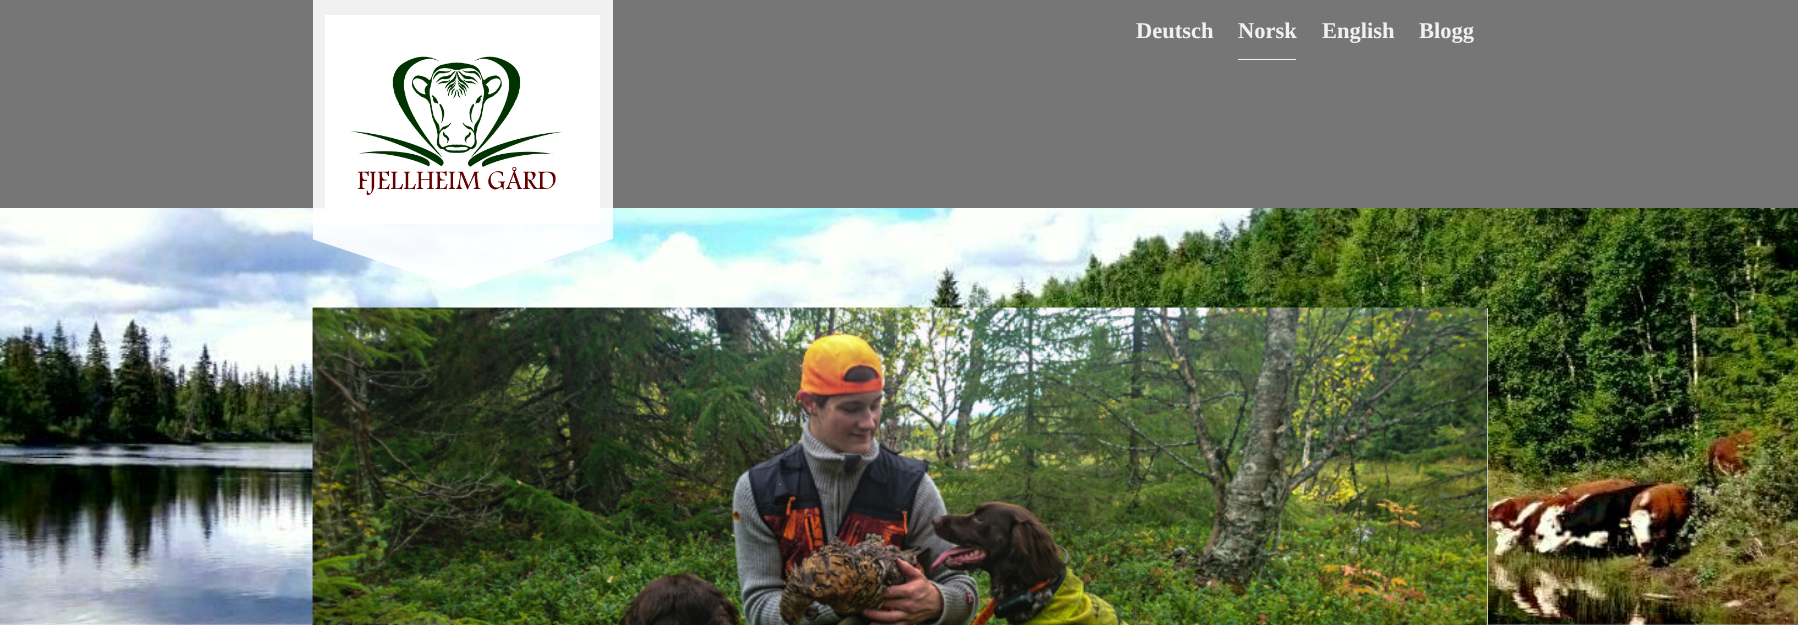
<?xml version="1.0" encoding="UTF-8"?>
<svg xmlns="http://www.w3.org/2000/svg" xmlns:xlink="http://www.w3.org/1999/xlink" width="1798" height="625">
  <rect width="100%" height="100%" fill="#ffffff" />
  <image x="0" y="208" width="1798" height="417" xlink:href="image1.png" />
  <rect width="1798" height="208" fill="#767676" />
  <rect x="313" width="300" height="239" fill="#ffffff" fill-opacity="0.9" />
  <image x="325" y="15" width="275" height="209" xlink:href="image2.png" />
  <path d="M 312 239 h 300 l -150 50 z" fill="#ffffff" fill-opacity="0.9" />
  <rect x="1238" y="59" width="58" height="1" fill="#f1f1f1" />
  <image x="312" y="307" width="1176" height="318" xlink:href="image3.png" />
  <rect x="1487" y="308" width="1" height="317" fill="#eeeeee" />
  <image x="312" y="307" width="1176" height="318" xlink:href="image4.png" />
  <text x="1136" y="38" style="font-family: Liberation Serif; font-size: 22.5px; font-weight: bold; fill: #f1f1f1">Deutsch</text>
  <text x="1238" y="38" style="font-family: Liberation Serif; font-size: 22.5px; font-weight: bold; fill: #f1f1f1">Norsk</text>
  <text x="1322" y="38" style="font-family: Liberation Serif; font-size: 22.5px; font-weight: bold; fill: #f1f1f1">English</text>
  <text x="1419" y="38" style="font-family: Liberation Serif; font-size: 22.5px; font-weight: bold; fill: #f1f1f1">Blogg</text>
</svg>
